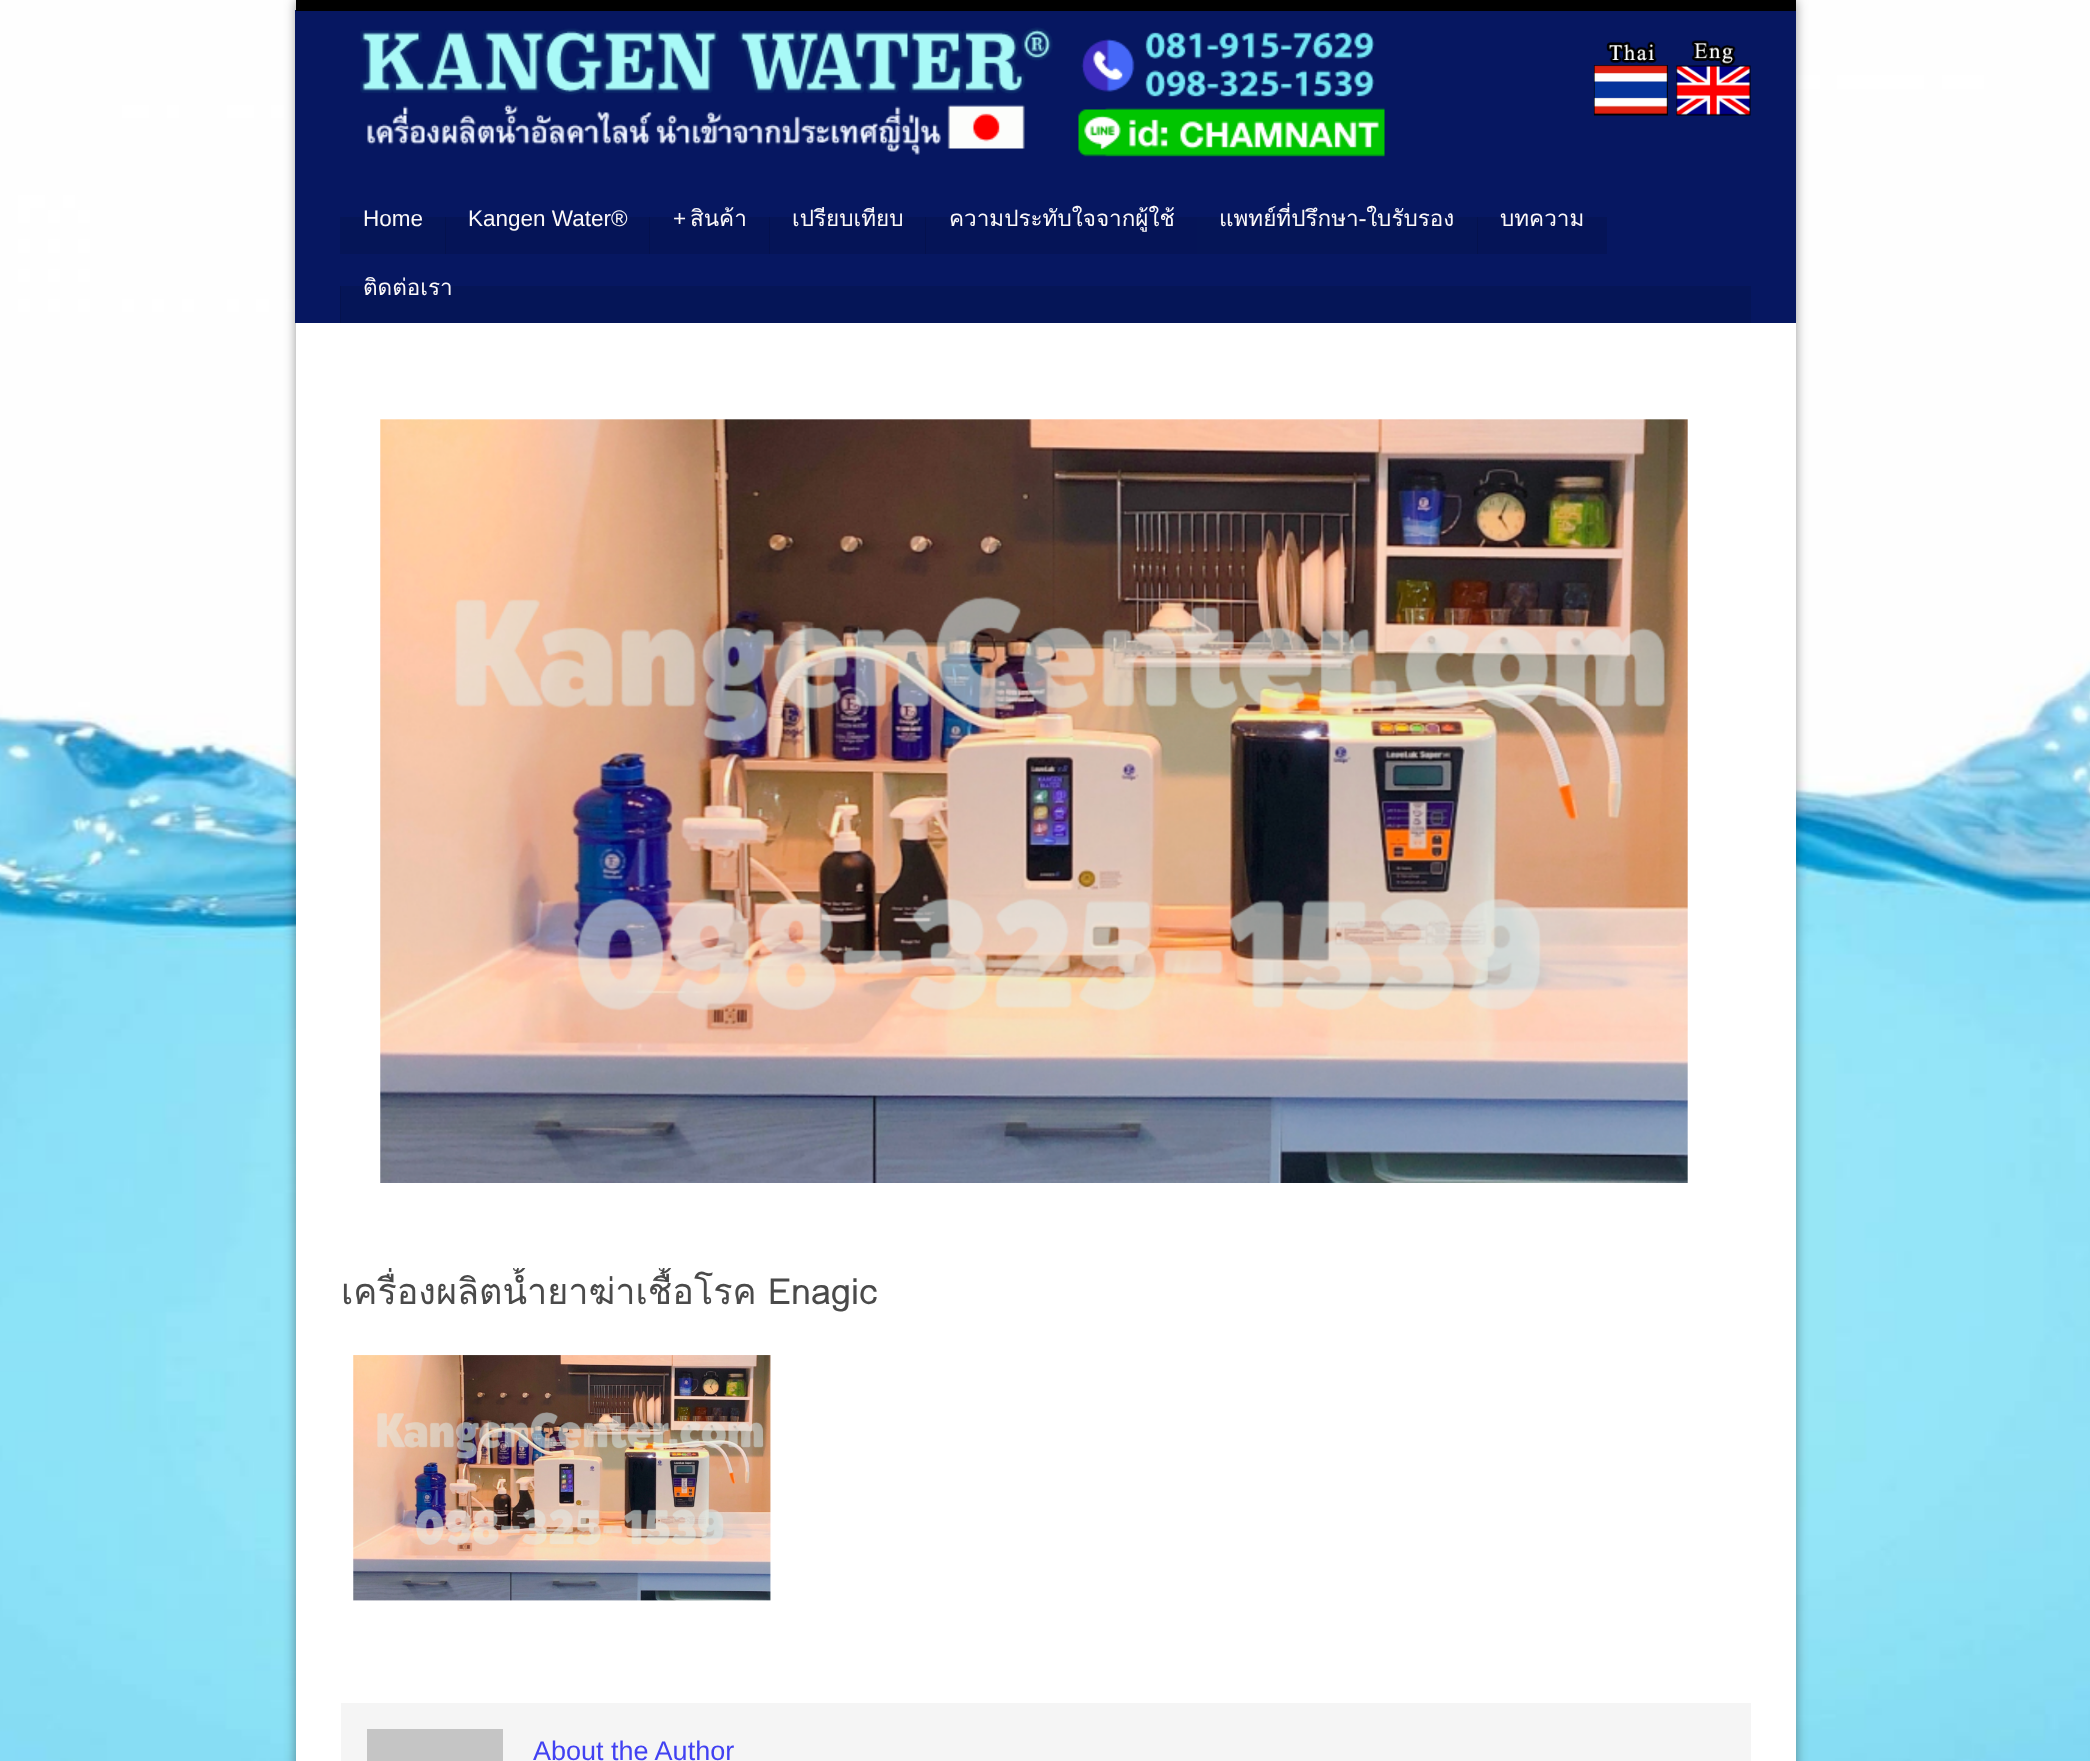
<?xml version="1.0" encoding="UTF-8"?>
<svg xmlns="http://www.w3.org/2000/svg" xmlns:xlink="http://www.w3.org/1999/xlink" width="2090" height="1761">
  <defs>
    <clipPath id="clip1"><rect x="341" y="1268" width="1410" height="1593" /></clipPath>
  </defs>
  <rect width="100%" height="100%" fill="#ffffff" />
  <image x="0" y="0" width="2090" height="1761" xlink:href="image1.png" />
  <rect x="296" width="1500" height="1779" fill="#000000" fill-opacity="0.4" filter="blur(6px)" />
  <rect x="295" y="10" width="1501" height="313" fill="#061761" />
  <rect x="296" width="1500" height="11" fill="#000000" />
  <image x="360" y="27" width="1025" height="130" xlink:href="image2.png" />
  <image x="1593" y="41" width="75" height="75" xlink:href="image3.png" />
  <image x="1676" y="40" width="75" height="76" xlink:href="image4.png" />
  <rect x="340" y="286" width="1411" height="37" fill="#051557" />
  <rect x="340" y="217" width="106" height="37" fill="#051557" />
  <rect x="445" y="217" width="205" height="37" fill="#000000" fill-opacity="0.1" />
  <rect x="649" y="217" width="121" height="37" fill="#000000" fill-opacity="0.1" />
  <rect x="769" y="217" width="157" height="37" fill="#000000" fill-opacity="0.1" />
  <rect x="925" y="217" width="272" height="37" fill="#000000" fill-opacity="0.1" />
  <rect x="1197" y="217" width="281" height="37" fill="#051557" />
  <rect x="1477" y="217" width="130" height="37" fill="#000000" fill-opacity="0.1" />
  <rect x="341" y="286" width="135" height="37" fill="#061861" />
  <rect x="340" y="286" width="136" height="37" fill="#000000" fill-opacity="0.1" />
  <rect x="296" y="323" width="1500" height="1438" fill="#ffffff" />
  <image x="380" y="419" width="1308" height="764" xlink:href="image5.png" />
  <image x="353" y="1355" width="418" height="246" xlink:href="image6.png" />
  <rect x="341" y="1703" width="1410" height="58" fill="#f5f5f5" />
  <rect x="367" y="1729" width="136" height="32" fill="#c5c5c5" />
  <text x="363" y="226" style="font-family: Liberation Sans; font-size: 22.5px; fill: #fcf9f9">Home</text>
  <text x="468" y="226" style="font-family: Liberation Sans; font-size: 22.5px; fill: #fcf9f9">Kangen Water®</text>
  <text x="673" y="226" style="font-family: Liberation Sans; font-size: 22.5px; fill: #fcf9f9">+</text>
  <text x="690" y="226" style="font-family: Loma; font-size: 22.5px; fill: #fcf9f9">สินค้า</text>
  <text x="792" y="226" style="font-family: Loma; font-size: 22.5px; fill: #fcf9f9">เปรียบเทียบ</text>
  <text x="949" y="226" style="font-family: Loma; font-size: 22.5px; fill: #fcf9f9">ความประทับใจจากผู้ใช้</text>
  <text x="1219" y="226" style="font-family: Loma; font-size: 22.5px; fill: #fcf9f9">แพทย์ที่ปรึกษา-ใบรับรอง</text>
  <text x="1500" y="226" style="font-family: Loma; font-size: 22.5px; fill: #fcf9f9">บทความ</text>
  <text x="363" y="295" style="font-family: Loma; font-size: 22.5px; fill: #fcf9f9">ติดต่อเรา</text>
  <g clip-path="url(#clip1)">
    <text x="341" y="1304" word-spacing="-1" style="font-family: Loma; font-size: 36px; fill: #4a4a4a">เครื่องผลิตน้ำยาฆ่าเชื้อโรค Enagic</text>
  </g>
  <text x="533" y="1760" style="font-family: Liberation Sans; font-size: 27px; fill: #4141f2">About the Author</text>
</svg>
